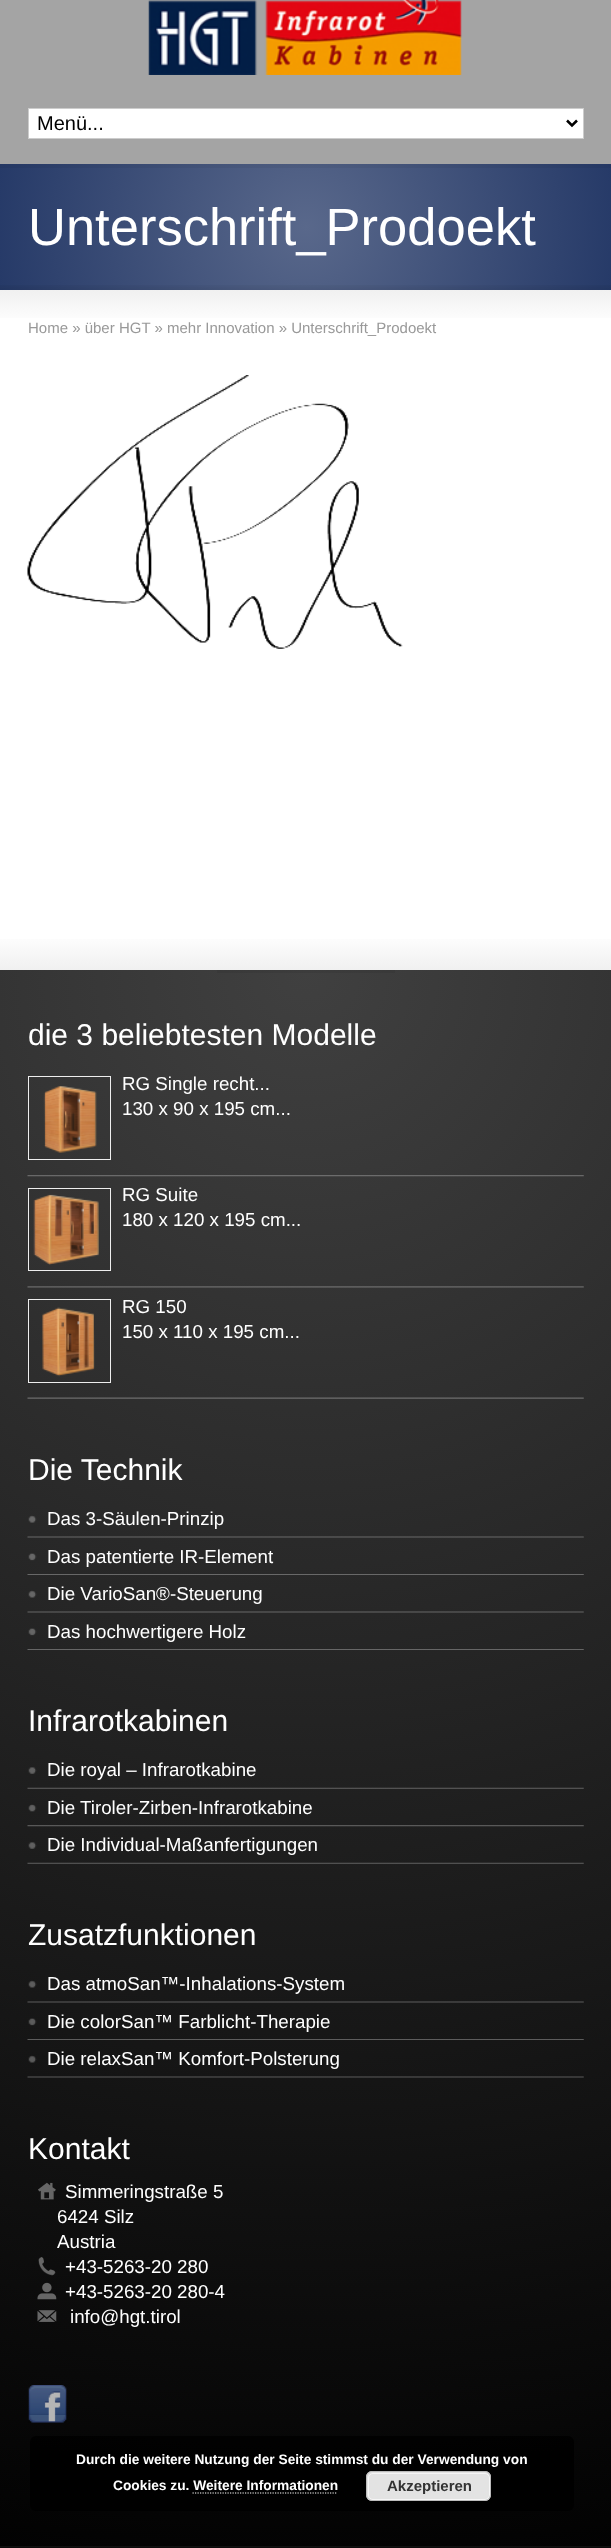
<?xml version="1.0" encoding="UTF-8"?>
<svg xmlns="http://www.w3.org/2000/svg" xmlns:xlink="http://www.w3.org/1999/xlink" width="611" height="2548">
  <defs>
    <radialGradient id="g1" gradientUnits="userSpaceOnUse" cx="306" cy="227" r="312"><stop offset="0" stop-color="#59688b" /><stop offset="1" stop-color="#263a68" /></radialGradient>
    <radialGradient id="g2" gradientUnits="userSpaceOnUse" cx="306" cy="227" r="312"><stop offset="0" stop-color="#556384" /><stop offset="1" stop-color="#243763" /></radialGradient>
    <linearGradient id="g3" gradientUnits="userSpaceOnUse" x1="306" y1="290" x2="306" y2="324"><stop offset="0" stop-color="#f0f0f0" /><stop offset="1" stop-color="#ffffff" /></linearGradient>
    <linearGradient id="g4" gradientUnits="userSpaceOnUse" x1="306" y1="933" x2="306" y2="970"><stop offset="0" stop-color="#ffffff" /><stop offset="1" stop-color="#f0f0f0" /></linearGradient>
    <radialGradient id="g5" gradientUnits="userSpaceOnUse" cx="306" cy="970" r="1657"><stop offset="0" stop-color="#404040" /><stop offset="1" stop-color="#000000" /></radialGradient>
    <radialGradient id="g6" gradientUnits="userSpaceOnUse" cx="306" cy="970" r="1657"><stop offset="0" stop-color="#3c3c3c" /><stop offset="1" stop-color="#000000" /></radialGradient>
  </defs>
  <rect width="100%" height="100%" fill="#ffffff" />
  <rect width="611" height="164" fill="#a4a4a4" />
  <image x="148" y="0" width="314" height="75" xlink:href="image1.png" />
  <rect x="28.5" y="108.5" width="555" height="30" fill="#ffffff" stroke="#cccccc" />
  <path d="M 567 120.5 l 5 5 l 5 -5" fill="none" stroke="#000000" stroke-width="2.5" />
  <rect y="168" width="611" height="122" fill="url(#g1)" />
  <rect y="164" width="611" height="4" fill="url(#g2)" />
  <image x="0" y="285" width="611" height="5" xlink:href="image2.png" />
  <rect y="290" width="611" height="28" fill="url(#g3)" />
  <image x="27" y="375" width="376" height="274" xlink:href="image3.png" />
  <rect y="939" width="611" height="31" fill="url(#g4)" />
  <rect y="970" width="611" height="1578" fill="url(#g5)" />
  <rect x="217" y="970" width="178" height="3" fill="url(#g6)" />
  <image x="27" y="1175" width="557" height="2" xlink:href="image4.png" />
  <rect x="28.5" y="1076.5" width="82" height="83" fill="none" stroke="#eeeeee" />
  <image x="43" y="1086" width="54" height="67" xlink:href="image5.png" />
  <image x="27" y="1286" width="557" height="2" xlink:href="image6.png" />
  <rect x="28.5" y="1188.5" width="82" height="82" fill="none" stroke="#eeeeee" />
  <image x="33" y="1194" width="66" height="71" xlink:href="image7.png" />
  <image x="27" y="1397" width="557" height="2" xlink:href="image8.png" />
  <rect x="28.5" y="1299.5" width="82" height="83" fill="none" stroke="#eeeeee" />
  <image x="42" y="1307" width="53" height="70" xlink:href="image9.png" />
  <image x="28" y="1515" width="9" height="8" xlink:href="image10.png" />
  <image x="27" y="1536" width="557" height="2" xlink:href="image11.png" />
  <image x="28" y="1553" width="9" height="8" xlink:href="image12.png" />
  <image x="27" y="1574" width="557" height="1" xlink:href="image13.png" />
  <image x="28" y="1590" width="9" height="8" xlink:href="image14.png" />
  <image x="27" y="1611" width="557" height="2" xlink:href="image15.png" />
  <image x="28" y="1628" width="9" height="8" xlink:href="image16.png" />
  <image x="27" y="1649" width="557" height="1" xlink:href="image17.png" />
  <image x="28" y="1767" width="9" height="7" xlink:href="image18.png" />
  <image x="27" y="1787" width="557" height="2" xlink:href="image19.png" />
  <image x="28" y="1804" width="9" height="8" xlink:href="image20.png" />
  <image x="27" y="1825" width="557" height="2" xlink:href="image21.png" />
  <image x="28" y="1842" width="9" height="7" xlink:href="image22.png" />
  <image x="27" y="1862" width="557" height="2" xlink:href="image23.png" />
  <image x="28" y="1980" width="9" height="8" xlink:href="image24.png" />
  <image x="27" y="2001" width="557" height="2" xlink:href="image25.png" />
  <image x="28" y="2018" width="9" height="8" xlink:href="image26.png" />
  <image x="27" y="2039" width="557" height="1" xlink:href="image27.png" />
  <image x="28" y="2055" width="9" height="8" xlink:href="image28.png" />
  <image x="27" y="2076" width="557" height="2" xlink:href="image29.png" />
  <image x="38" y="2182" width="18" height="18" xlink:href="image30.png" />
  <image x="38" y="2257" width="18" height="19" xlink:href="image31.png" />
  <image x="37" y="2282" width="20" height="18" xlink:href="image32.png" />
  <image x="37" y="2310" width="20" height="12" xlink:href="image33.png" />
  <image x="28" y="2385" width="39" height="38" xlink:href="image34.png" />
  <image x="0" y="2546" width="611" height="2" xlink:href="image35.png" />
  <rect x="30" y="2436" width="544" height="75" rx="6" fill="#000000" fill-opacity="0.85" />
  <rect x="366" y="2471" width="125" height="30" rx="6" fill="#e3e3e3" />
  <rect x="368.5" y="2473.5" width="121" height="26" rx="4.5" fill="none" stroke="#f6f6f6" />
  <rect x="366.5" y="2471.5" width="124" height="29" rx="5.5" fill="none" stroke="#bbbbbb" />
  <path d="M 192.5 2493 h 145" fill="none" stroke="#ffffff" stroke-width="1.2" stroke-dasharray="1.25 1.25" />
  <text x="37" y="130" style="font-family: Liberation Sans; font-size: 20px; fill: #000000">Menü...</text>
  <text x="28" y="245" style="font-family: Liberation Sans; font-size: 52.5px; fill: #ffffff">Unterschrift_Prodoekt</text>
  <text x="28" y="333" style="font-family: Liberation Sans; font-size: 15px; fill: #999999">Home » über HGT » mehr Innovation » Unterschrift_Prodoekt</text>
  <text x="28" y="1045" style="font-family: Liberation Sans; font-size: 30px; fill: #ffffff">die 3 beliebtesten Modelle</text>
  <text x="122" y="1090" style="font-family: Liberation Sans; font-size: 18.75px; fill: #ffffff">RG Single recht...</text>
  <text x="122" y="1115" style="font-family: Liberation Sans; font-size: 18.75px; fill: #ffffff">130 x 90 x 195 cm...</text>
  <text x="122" y="1201" style="font-family: Liberation Sans; font-size: 18.75px; fill: #ffffff">RG Suite</text>
  <text x="122" y="1226" style="font-family: Liberation Sans; font-size: 18.75px; fill: #ffffff">180 x 120 x 195 cm...</text>
  <text x="122" y="1313" style="font-family: Liberation Sans; font-size: 18.75px; fill: #ffffff">RG 150</text>
  <text x="122" y="1338" style="font-family: Liberation Sans; font-size: 18.75px; fill: #ffffff">150 x 110 x 195 cm...</text>
  <text x="28" y="1480" style="font-family: Liberation Sans; font-size: 30px; fill: #ffffff">Die Technik</text>
  <text x="47" y="1525" style="font-family: Liberation Sans; font-size: 18.75px; fill: #ffffff">Das 3-Säulen-Prinzip</text>
  <text x="47" y="1563" style="font-family: Liberation Sans; font-size: 18.75px; fill: #ffffff">Das patentierte IR-Element</text>
  <text x="47" y="1600" style="font-family: Liberation Sans; font-size: 18.75px; fill: #ffffff">Die VarioSan®-Steuerung</text>
  <text x="47" y="1638" style="font-family: Liberation Sans; font-size: 18.75px; fill: #ffffff">Das hochwertigere Holz</text>
  <text x="28" y="1731" style="font-family: Liberation Sans; font-size: 30px; fill: #ffffff">Infrarotkabinen</text>
  <text x="47" y="1776" style="font-family: Liberation Sans; font-size: 18.75px; fill: #ffffff">Die royal – Infrarotkabine</text>
  <text x="47" y="1814" style="font-family: Liberation Sans; font-size: 18.75px; fill: #ffffff">Die Tiroler-Zirben-Infrarotkabine</text>
  <text x="47" y="1851" style="font-family: Liberation Sans; font-size: 18.75px; fill: #ffffff">Die Individual-Maßanfertigungen</text>
  <text x="28" y="1945" style="font-family: Liberation Sans; font-size: 30px; fill: #ffffff">Zusatzfunktionen</text>
  <text x="47" y="1990" style="font-family: Liberation Sans; font-size: 18.75px; fill: #ffffff">Das atmoSan™-Inhalations-System</text>
  <text x="47" y="2028" style="font-family: Liberation Sans; font-size: 18.75px; fill: #ffffff">Die colorSan™ Farblicht-Therapie</text>
  <text x="47" y="2065" style="font-family: Liberation Sans; font-size: 18.75px; fill: #ffffff">Die relaxSan™ Komfort-Polsterung</text>
  <text x="28" y="2159" style="font-family: Liberation Sans; font-size: 30px; fill: #ffffff">Kontakt</text>
  <text x="65" y="2198" style="font-family: Liberation Sans; font-size: 18.75px; fill: #ffffff">Simmeringstraße 5</text>
  <text x="57" y="2223" style="font-family: Liberation Sans; font-size: 18.75px; fill: #ffffff">6424 Silz</text>
  <text x="57" y="2248" style="font-family: Liberation Sans; font-size: 18.75px; fill: #ffffff">Austria</text>
  <text x="65" y="2273" style="font-family: Liberation Sans; font-size: 18.75px; fill: #ffffff">+43-5263-20 280</text>
  <text x="65" y="2298" style="font-family: Liberation Sans; font-size: 18.75px; fill: #ffffff">+43-5263-20 280-4</text>
  <text x="70" y="2323" style="font-family: Liberation Sans; font-size: 18.75px; fill: #ffffff">info@hgt.tirol</text>
  <text x="76" y="2464" style="font-family: Liberation Sans; font-size: 13.75px; font-weight: bold; fill: #ffffff">Durch die weitere Nutzung der Seite stimmst du der Verwendung von</text>
  <text x="113" y="2490" style="font-family: Liberation Sans; font-size: 13.75px; font-weight: bold; fill: #ffffff">Cookies zu. Weitere Informationen</text>
  <text x="387" y="2491" style="font-family: Liberation Sans; font-size: 15px; font-weight: bold; fill: #333333">Akzeptieren</text>
</svg>
